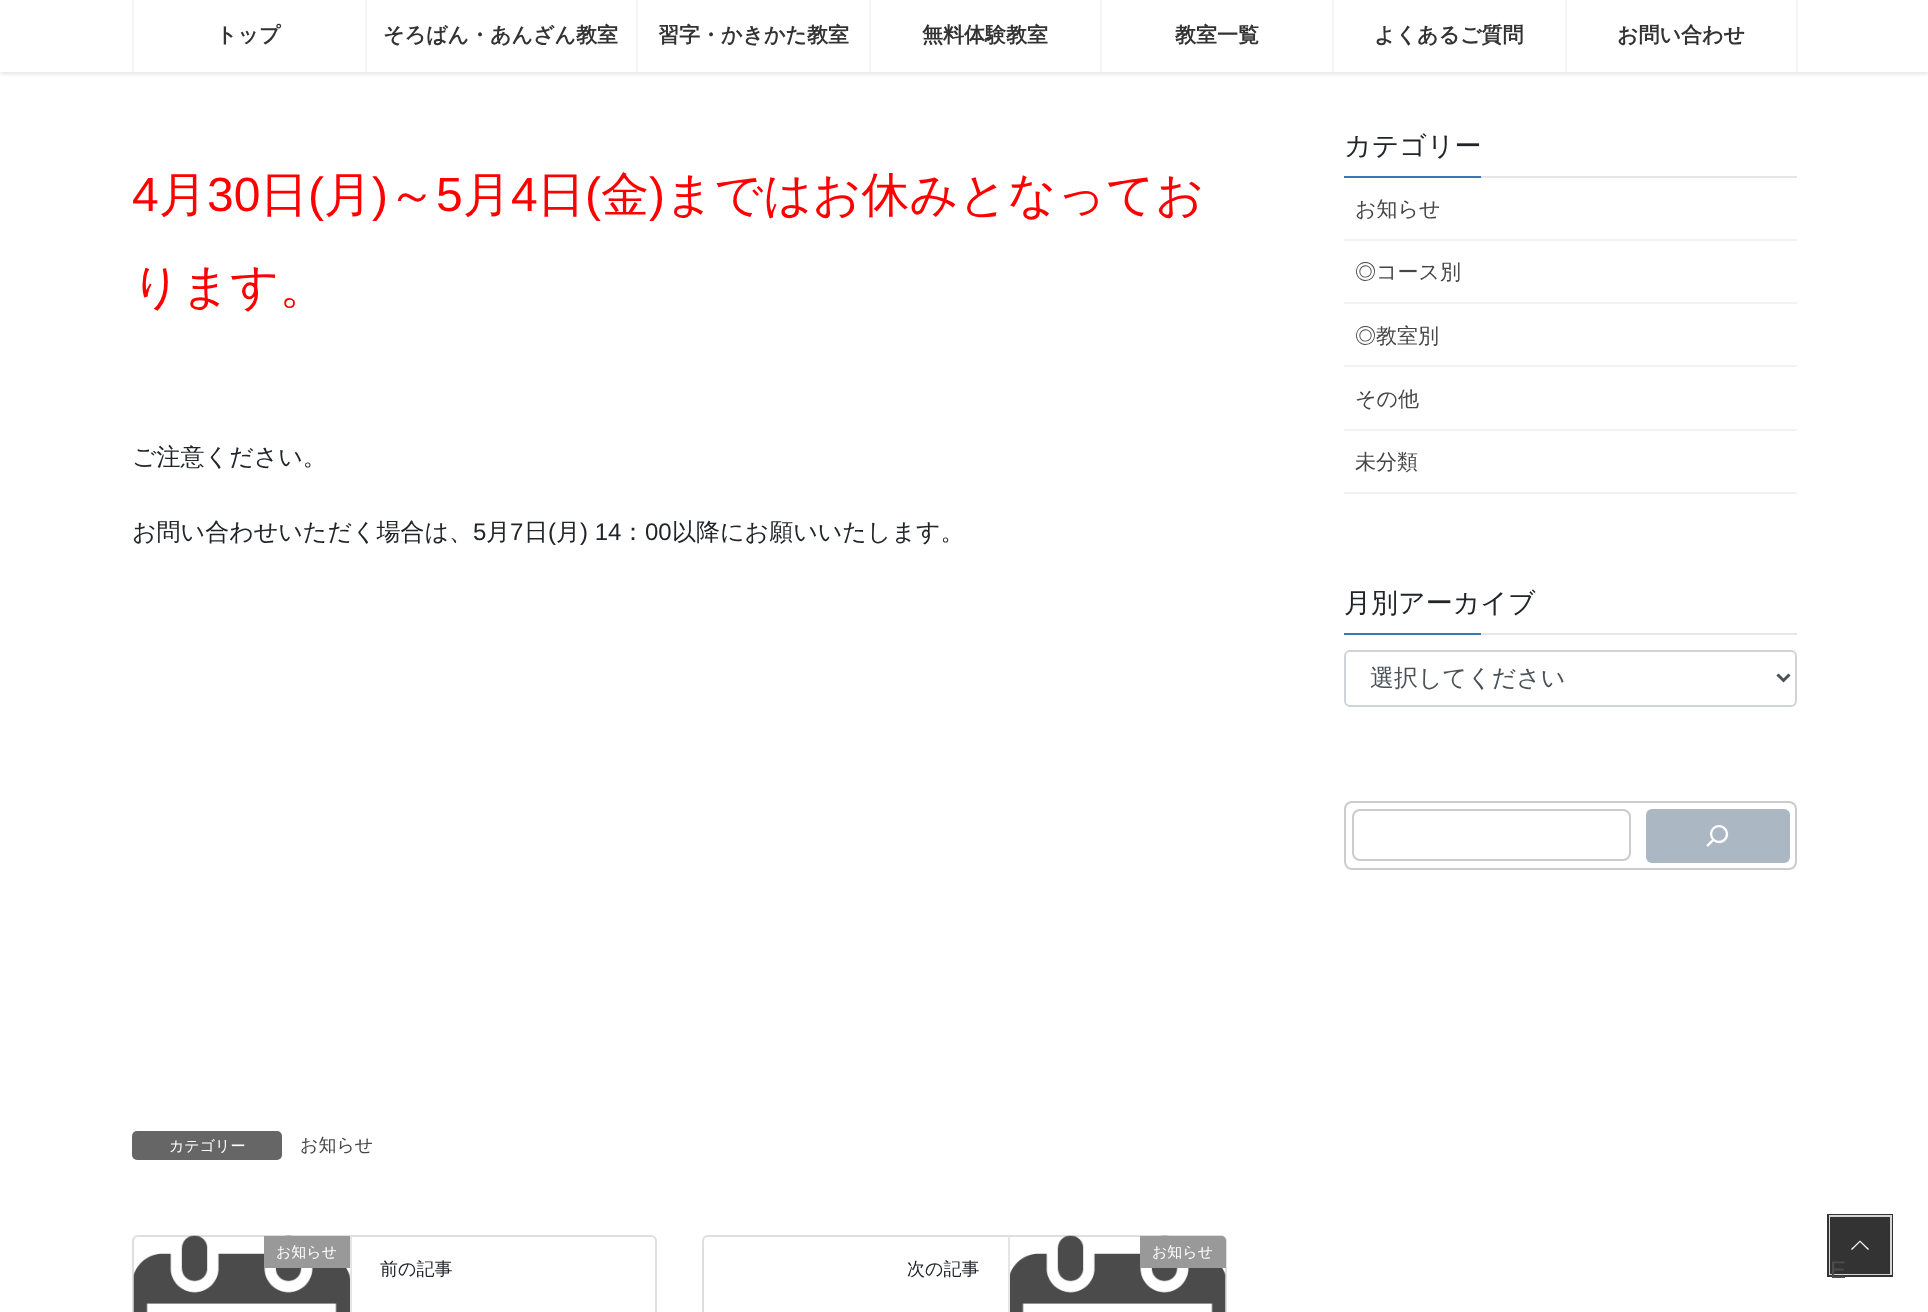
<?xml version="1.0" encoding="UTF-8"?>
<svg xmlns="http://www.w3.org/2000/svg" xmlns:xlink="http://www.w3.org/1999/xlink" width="1928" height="1312">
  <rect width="100%" height="100%" fill="#ffffff" />
  <rect y="2" width="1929" height="72" fill="#000000" fill-opacity="0.1" filter="blur(2px)" />
  <rect width="1928" height="72" fill="#ffffff" />
  <rect x="132" width="2" height="72" fill="#f5f5f5" />
  <rect x="365" width="2" height="72" fill="#f5f5f5" />
  <rect x="636" width="2" height="72" fill="#f5f5f5" />
  <rect x="869" width="2" height="72" fill="#f5f5f5" />
  <rect x="1100" width="2" height="72" fill="#f5f5f5" />
  <rect x="1332" width="2" height="72" fill="#f5f5f5" />
  <rect x="1796" width="2" height="72" fill="#f5f5f5" />
  <rect x="1565" width="2" height="72" fill="#f5f5f5" />
  <rect x="132" y="1131" width="150" height="29" rx="5" fill="#666666" />
  <rect x="133" y="1236" width="523" height="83" rx="5" fill="none" stroke="#dfdfdf" stroke-width="2" />
  <image x="133" y="1235" width="217" height="77" xlink:href="image1.png" />
  <rect x="350" y="1236" width="2" height="76" fill="#e5e5e5" />
  <rect x="264" y="1236" width="86" height="32" fill="#999999" />
  <rect x="703" y="1236" width="523" height="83" rx="5" fill="none" stroke="#dfdfdf" stroke-width="2" />
  <image x="1010" y="1235" width="216" height="77" xlink:href="image2.png" />
  <rect x="1008" y="1236" width="2" height="76" fill="#e5e5e5" />
  <path d="M 1140 1236 h 81 c 3 0 5 2 5 5 v 27 h -86 z" fill="#999999" />
  <rect x="1481" y="176" width="316" height="2" fill="#e6e6e6" />
  <rect x="1344" y="176" width="137" height="2" fill="#337ab7" />
  <rect x="1344" y="239" width="453" height="2" fill="#f2f2f2" />
  <rect x="1344" y="302" width="453" height="2" fill="#f2f2f2" />
  <rect x="1344" y="365" width="453" height="2" fill="#f2f2f2" />
  <rect x="1344" y="429" width="453" height="2" fill="#f2f2f2" />
  <rect x="1344" y="492" width="453" height="2" fill="#f2f2f2" />
  <rect x="1481" y="633" width="316" height="2" fill="#e6e6e6" />
  <rect x="1344" y="633" width="137" height="2" fill="#337ab7" />
  <rect x="1345" y="651" width="451" height="55" rx="5" fill="none" stroke="#ced4da" stroke-width="2" />
  <path d="M 1777.5 674.5 l 6 6 l 6 -6" fill="none" stroke="#495057" stroke-width="3" />
  <rect x="1345" y="802" width="451" height="67" rx="7" fill="none" stroke="#cccccc" stroke-width="2" />
  <rect x="1353" y="810" width="277" height="50" rx="7" fill="none" stroke="#cccccc" stroke-width="2" />
  <rect x="1646" y="809" width="144" height="54" rx="6" fill="#abb8c3" />
  <image x="1706" y="825" width="23" height="22" xlink:href="image3.png" />
  <rect x="1828.5" y="1215.5" width="63" height="60" fill="none" stroke="#333333" stroke-width="3" />
  <rect x="1830" y="1216" width="61" height="58" fill="none" stroke="#ffffff" stroke-opacity="0.8" stroke-width="2" />
  <rect x="1830" y="1217" width="60" height="57" fill="#333333" />
  <path d="M 1869 1249 l -1 1 l -8 -8 l -8 8 l -1 -1 l 9 -8.5 z" fill="#ffffff" />
  <text x="216" y="42" style="font-family: WenQuanYi Zen Hei; font-size: 21px; font-weight: bold; fill: #333333">トップ</text>
  <text x="383" y="42" style="font-family: WenQuanYi Zen Hei; font-size: 21px; font-weight: bold; fill: #333333">そろばん・あんざん教室</text>
  <text x="658" y="42" style="font-family: WenQuanYi Zen Hei; font-size: 21px; font-weight: bold; fill: #333333">習字・かきかた教室</text>
  <text x="922" y="42" style="font-family: WenQuanYi Zen Hei; font-size: 21px; font-weight: bold; fill: #333333">無料体験教室</text>
  <text x="1175" y="42" style="font-family: WenQuanYi Zen Hei; font-size: 21px; font-weight: bold; fill: #333333">教室一覧</text>
  <text x="1374" y="42" style="font-family: WenQuanYi Zen Hei; font-size: 21px; font-weight: bold; fill: #333333">よくあるご質問</text>
  <text x="1617" y="42" style="font-family: WenQuanYi Zen Hei; font-size: 21px; font-weight: bold; fill: #333333">お問い合わせ</text>
  <text x="132" y="211" style="font-family: Liberation Sans; font-size: 48px; fill: #ff0000">4</text>
  <text x="159" y="211" style="font-family: WenQuanYi Zen Hei; font-size: 48px; font-weight: 500; fill: #ff0000">月</text>
  <text x="207" y="211" style="font-family: Liberation Sans; font-size: 48px; fill: #ff0000">30</text>
  <text x="260" y="211" style="font-family: WenQuanYi Zen Hei; font-size: 48px; font-weight: 500; fill: #ff0000">日</text>
  <text x="308" y="211" style="font-family: Liberation Sans; font-size: 48px; fill: #ff0000">(</text>
  <text x="324" y="211" style="font-family: WenQuanYi Zen Hei; font-size: 48px; font-weight: 500; fill: #ff0000">月</text>
  <text x="372" y="211" style="font-family: Liberation Sans; font-size: 48px; fill: #ff0000">)</text>
  <text x="388" y="211" style="font-family: WenQuanYi Zen Hei; font-size: 48px; font-weight: 500; fill: #ff0000">～</text>
  <text x="436" y="211" style="font-family: Liberation Sans; font-size: 48px; fill: #ff0000">5</text>
  <text x="463" y="211" style="font-family: WenQuanYi Zen Hei; font-size: 48px; font-weight: 500; fill: #ff0000">月</text>
  <text x="511" y="211" style="font-family: Liberation Sans; font-size: 48px; fill: #ff0000">4</text>
  <text x="537" y="211" style="font-family: WenQuanYi Zen Hei; font-size: 48px; font-weight: 500; fill: #ff0000">日</text>
  <text x="585" y="211" style="font-family: Liberation Sans; font-size: 48px; fill: #ff0000">(</text>
  <text x="601" y="211" style="font-family: WenQuanYi Zen Hei; font-size: 48px; font-weight: 500; fill: #ff0000">金</text>
  <text x="649" y="211" style="font-family: Liberation Sans; font-size: 48px; fill: #ff0000">)</text>
  <text x="665" y="211" style="font-family: WenQuanYi Zen Hei; font-size: 48px; font-weight: 500; fill: #ff0000">まではお休みとなってお</text>
  <text x="132" y="303" style="font-family: WenQuanYi Zen Hei; font-size: 48px; font-weight: 500; fill: #ff0000">ります。</text>
  <text x="132" y="465" style="font-family: WenQuanYi Zen Hei; font-size: 24px; font-weight: 500; fill: #212529">ご注意ください。</text>
  <text x="132" y="540" style="font-family: WenQuanYi Zen Hei; font-size: 24px; font-weight: 500; fill: #212529">お問い合わせいただく場合は、</text>
  <text x="473" y="540" style="font-family: Liberation Sans; font-size: 24px; fill: #212529">5</text>
  <text x="486" y="540" style="font-family: WenQuanYi Zen Hei; font-size: 24px; font-weight: 500; fill: #212529">月</text>
  <text x="510" y="540" style="font-family: Liberation Sans; font-size: 24px; fill: #212529">7</text>
  <text x="524" y="540" style="font-family: WenQuanYi Zen Hei; font-size: 24px; font-weight: 500; fill: #212529">日</text>
  <text x="548" y="540" style="font-family: Liberation Sans; font-size: 24px; fill: #212529">(</text>
  <text x="556" y="540" style="font-family: WenQuanYi Zen Hei; font-size: 24px; font-weight: 500; fill: #212529">月</text>
  <text x="580" y="540" style="font-family: Liberation Sans; font-size: 24px; fill: #212529">) 14</text>
  <text x="621" y="540" style="font-family: WenQuanYi Zen Hei; font-size: 24px; font-weight: 500; fill: #212529">：</text>
  <text x="645" y="540" style="font-family: Liberation Sans; font-size: 24px; fill: #212529">00</text>
  <text x="672" y="540" style="font-family: WenQuanYi Zen Hei; font-size: 24px; font-weight: 500; fill: #212529">以降にお願いいたします。</text>
  <text x="169" y="1151" style="font-family: WenQuanYi Zen Hei; font-size: 15px; font-weight: 500; fill: #ffffff">カテゴリー</text>
  <text x="300" y="1151" style="font-family: WenQuanYi Zen Hei; font-size: 18px; font-weight: 500; fill: #464646">お知らせ</text>
  <text x="276" y="1257" style="font-family: WenQuanYi Zen Hei; font-size: 15px; font-weight: 500; fill: #ffffff">お知らせ</text>
  <text x="380" y="1275" style="font-family: WenQuanYi Zen Hei; font-size: 18px; font-weight: 500; fill: #212529">前の記事</text>
  <text x="1152" y="1257" style="font-family: WenQuanYi Zen Hei; font-size: 15px; font-weight: 500; fill: #ffffff">お知らせ</text>
  <text x="907" y="1275" style="font-family: WenQuanYi Zen Hei; font-size: 18px; font-weight: 500; fill: #212529">次の記事</text>
  <text x="1344" y="155" style="font-family: WenQuanYi Zen Hei; font-size: 27px; font-weight: 500; fill: #212529">カテゴリー</text>
  <text x="1355" y="216" style="font-family: WenQuanYi Zen Hei; font-size: 21px; font-weight: 500; fill: #464646">お知らせ</text>
  <text x="1355" y="279" style="font-family: WenQuanYi Zen Hei; font-size: 21px; font-weight: 500; fill: #464646">◎コース別</text>
  <text x="1355" y="343" style="font-family: WenQuanYi Zen Hei; font-size: 21px; font-weight: 500; fill: #464646">◎教室別</text>
  <text x="1355" y="406" style="font-family: WenQuanYi Zen Hei; font-size: 21px; font-weight: 500; fill: #464646">その他</text>
  <text x="1355" y="469" style="font-family: WenQuanYi Zen Hei; font-size: 21px; font-weight: 500; fill: #464646">未分類</text>
  <text x="1344" y="612" style="font-family: WenQuanYi Zen Hei; font-size: 27px; font-weight: 500; fill: #212529">月別アーカイブ</text>
  <text x="1370" y="686" style="font-family: WenQuanYi Zen Hei; font-size: 24px; font-weight: 500; fill: #495057">選択してください</text>
  <text x="1830" y="1278" style="font-family: Liberation Sans; font-size: 24px; fill: #4c4c4c">E</text>
</svg>
